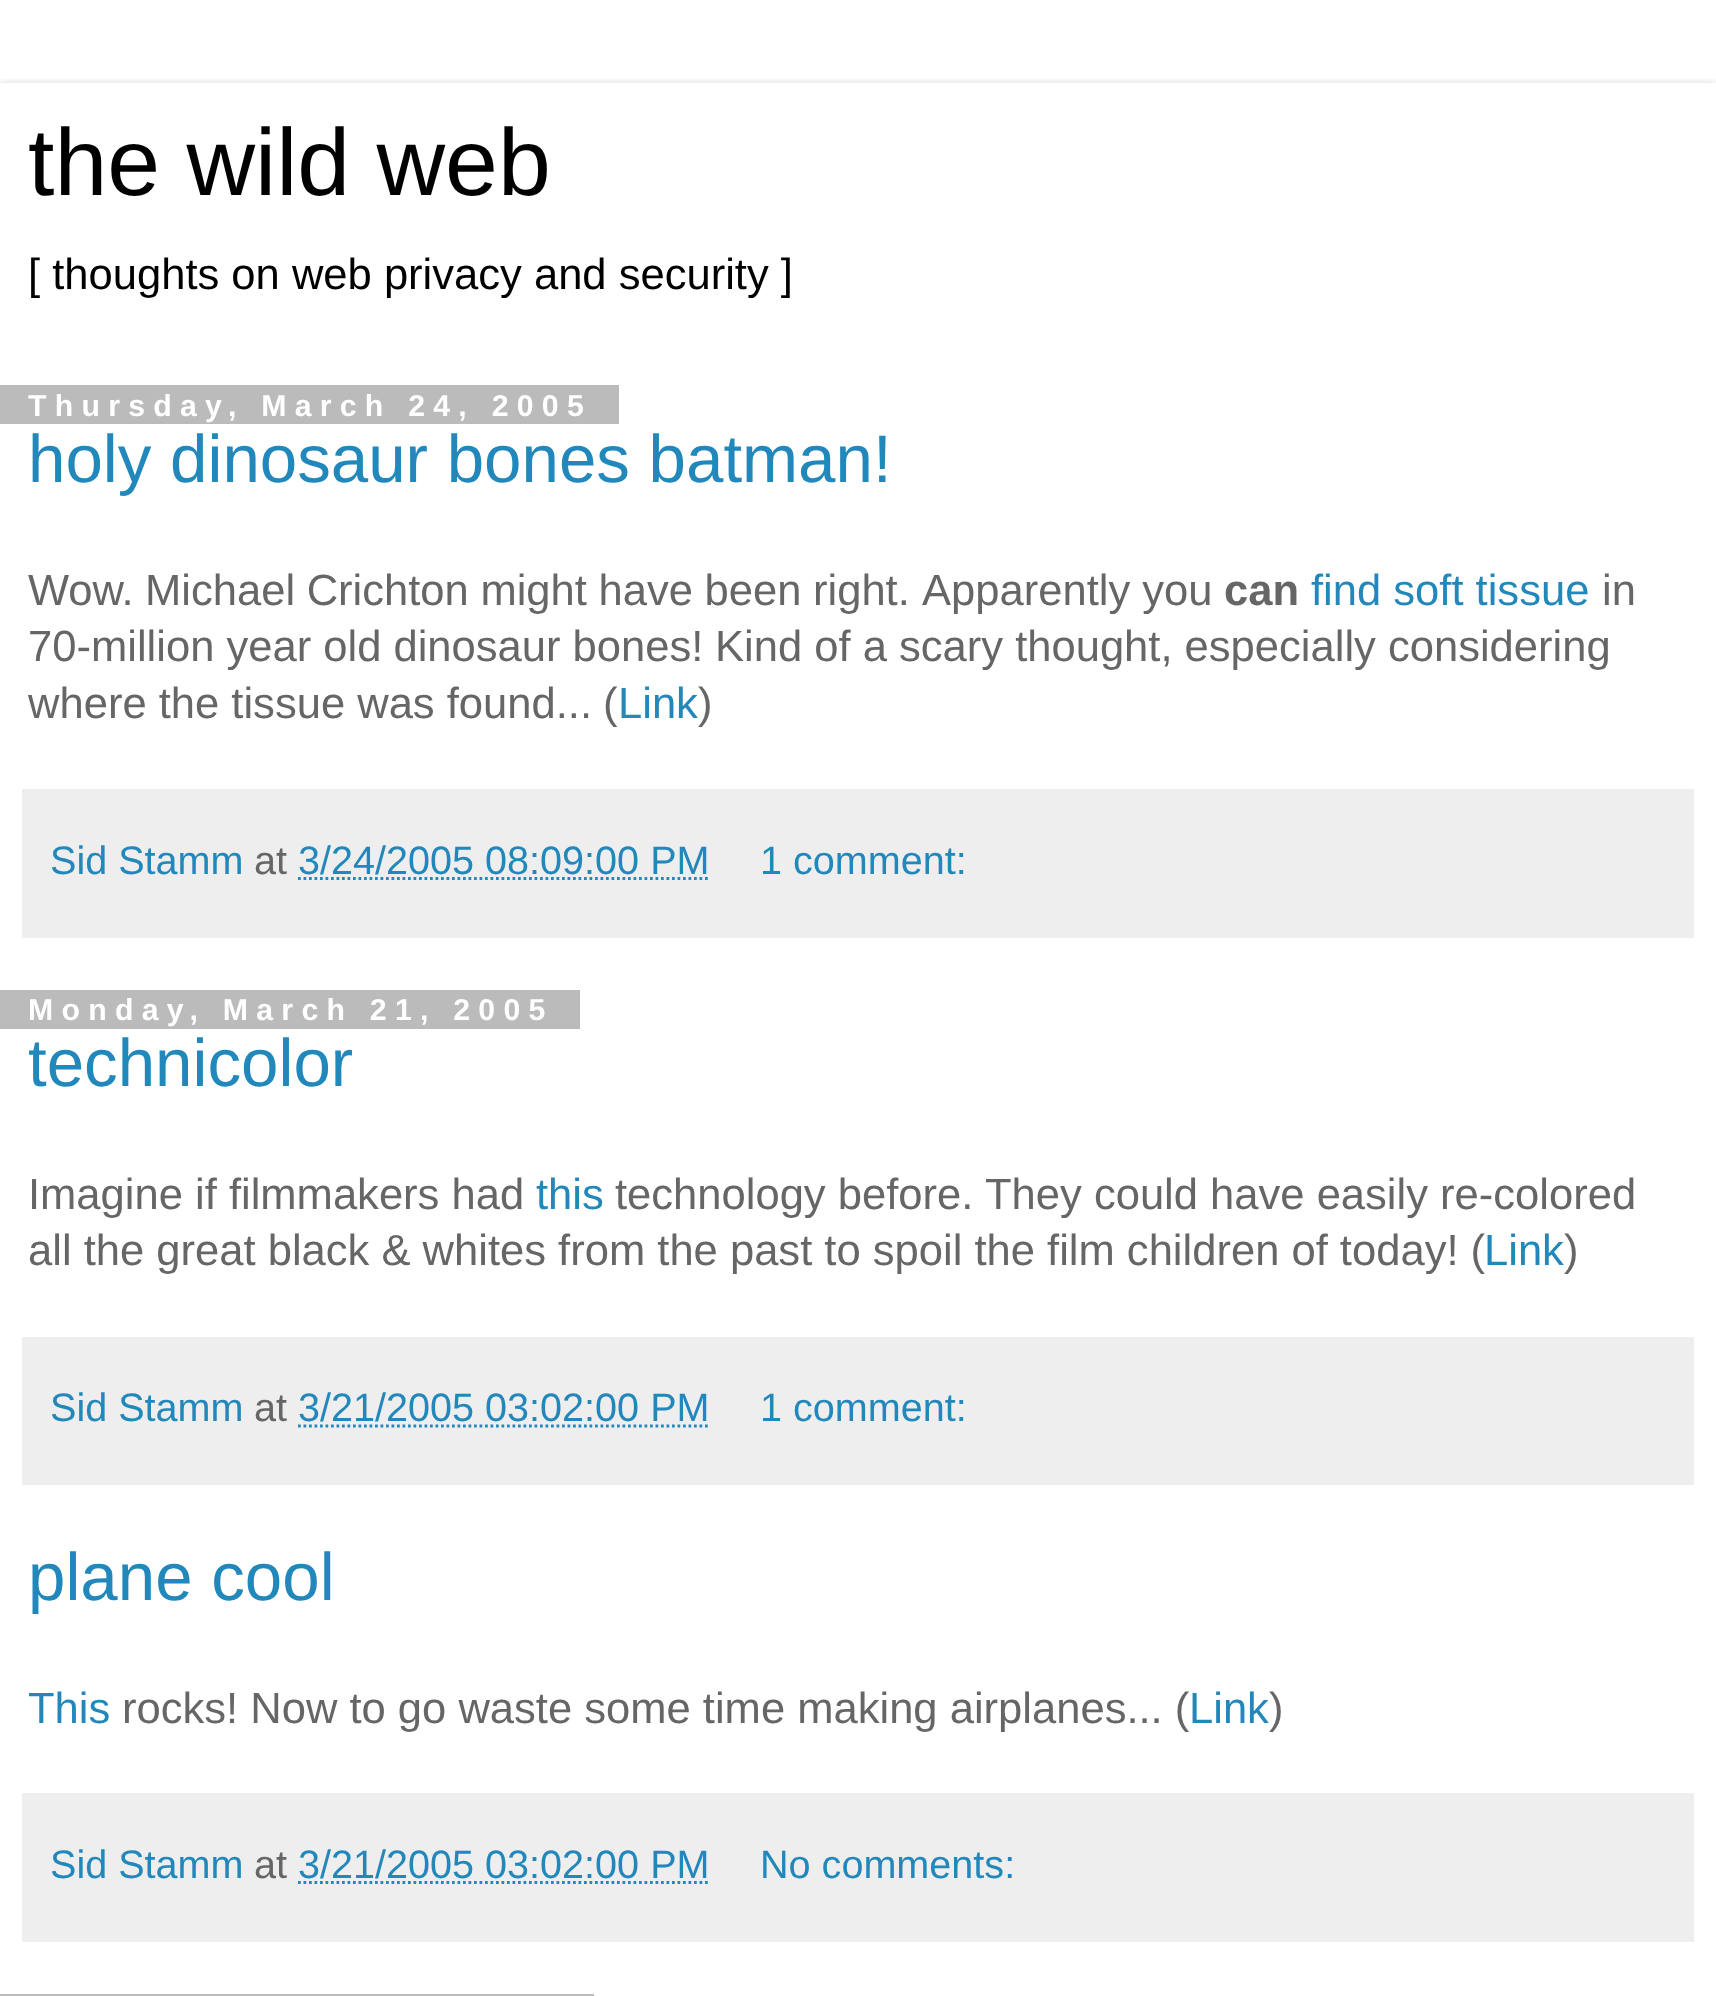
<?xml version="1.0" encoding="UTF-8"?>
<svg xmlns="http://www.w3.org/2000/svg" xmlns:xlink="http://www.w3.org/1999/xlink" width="1716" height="1996">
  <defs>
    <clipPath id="clip1"><rect x="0" y="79" width="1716" height="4" /></clipPath>
  </defs>
  <rect width="100%" height="100%" fill="#ffffff" />
  <g clip-path="url(#clip1)">
    <rect y="83" width="1716" height="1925" fill="#000000" fill-opacity="0.15" filter="blur(4px)" />
  </g>
  <rect y="385" width="619" height="39" fill="#bbbbbb" />
  <rect x="22" y="789" width="1672" height="149" fill="#eeeeee" />
  <path d="M 298 878.5 h 411.5" fill="none" stroke="#2288bb" stroke-width="2.8" stroke-dasharray="2.75 2.75" />
  <rect y="990" width="580" height="39" fill="#bbbbbb" />
  <rect x="22" y="1337" width="1672" height="148" fill="#eeeeee" />
  <path d="M 298 1426 h 411.5" fill="none" stroke="#2288bb" stroke-width="2.8" stroke-dasharray="2.75 2.75" />
  <rect x="22" y="1793" width="1672" height="149" fill="#eeeeee" />
  <path d="M 298 1882.5 h 411.5" fill="none" stroke="#2288bb" stroke-width="2.8" stroke-dasharray="2.75 2.75" />
  <rect y="1994" width="594" height="2" fill="#bbbbbb" />
  <text x="28" y="195" style="font-family: Liberation Sans; font-size: 95px; fill: #000000">the wild web</text>
  <text x="28" y="289" style="font-family: Liberation Sans; font-size: 43.55px; fill: #000000">[ thoughts on web privacy and security ]</text>
  <text x="28" y="416" style="font-family: Liberation Sans; font-size: 30.25px; font-weight: bold; letter-spacing: 8.25px; fill: #ffffff">Thursday, March 24, 2005</text>
  <text x="28" y="482" style="font-family: Liberation Sans; font-size: 67.25px; fill: #2288bb">holy dinosaur bones batman!</text>
  <text x="28" y="605" style="font-family: Liberation Sans; font-size: 43.55px; fill: #666666">Wow.</text>
  <text x="145" y="605" word-spacing="-0.5" style="font-family: Liberation Sans; font-size: 43.55px; fill: #666666">Michael Crichton might have been right.</text>
  <text x="922" y="605" style="font-family: Liberation Sans; font-size: 43.55px; fill: #666666">Apparently you</text>
  <text x="1224" y="605" style="font-family: Liberation Sans; font-size: 43.55px; font-weight: bold; fill: #666666">can</text>
  <text x="1311" y="605" style="font-family: Liberation Sans; font-size: 43.55px; fill: #2288bb">find soft tissue</text>
  <text x="1602" y="605" style="font-family: Liberation Sans; font-size: 43.55px; fill: #666666">in</text>
  <text x="28" y="661" style="font-family: Liberation Sans; font-size: 43.55px; fill: #666666">70-million year old dinosaur bones!</text>
  <text x="715" y="661" style="font-family: Liberation Sans; font-size: 43.55px; fill: #666666">Kind of a scary thought, especially considering</text>
  <text x="28" y="718" style="font-family: Liberation Sans; font-size: 43.55px; fill: #666666">where the tissue was found...</text>
  <text x="603" y="718" style="font-family: Liberation Sans; font-size: 43.55px; fill: #666666">(</text>
  <text x="618" y="718" style="font-family: Liberation Sans; font-size: 43.55px; fill: #2288bb">Link</text>
  <text x="698" y="718" style="font-family: Liberation Sans; font-size: 43.55px; fill: #666666">)</text>
  <text x="50" y="874" style="font-family: Liberation Sans; font-size: 39.6px; fill: #2288bb">Sid Stamm</text>
  <text x="254" y="874" style="font-family: Liberation Sans; font-size: 39.6px; fill: #666666">at</text>
  <text x="298" y="874" style="font-family: Liberation Sans; font-size: 39.6px; fill: #2288bb">3/24/2005 08:09:00 PM</text>
  <text x="760" y="874" style="font-family: Liberation Sans; font-size: 39.6px; fill: #2288bb">1 comment:</text>
  <text x="28" y="1020" style="font-family: Liberation Sans; font-size: 30.25px; font-weight: bold; letter-spacing: 8.25px; fill: #ffffff">Monday, March 21, 2005</text>
  <text x="28" y="1086" style="font-family: Liberation Sans; font-size: 67.25px; fill: #2288bb">technicolor</text>
  <text x="28" y="1209" style="font-family: Liberation Sans; font-size: 43.55px; fill: #666666">Imagine if filmmakers had</text>
  <text x="536" y="1209" style="font-family: Liberation Sans; font-size: 43.55px; fill: #2288bb">this</text>
  <text x="615" y="1209" style="font-family: Liberation Sans; font-size: 43.55px; fill: #666666">technology before.</text>
  <text x="985" y="1209" style="font-family: Liberation Sans; font-size: 43.55px; fill: #666666">They could have easily re-colored</text>
  <text x="28" y="1265" style="font-family: Liberation Sans; font-size: 43.55px; fill: #666666">all the great black &amp; whites from the past to spoil the film children of today! (</text>
  <text x="1484" y="1265" style="font-family: Liberation Sans; font-size: 43.55px; fill: #2288bb">Link</text>
  <text x="1564" y="1265" style="font-family: Liberation Sans; font-size: 43.55px; fill: #666666">)</text>
  <text x="50" y="1421" style="font-family: Liberation Sans; font-size: 39.6px; fill: #2288bb">Sid Stamm</text>
  <text x="254" y="1421" style="font-family: Liberation Sans; font-size: 39.6px; fill: #666666">at</text>
  <text x="298" y="1421" style="font-family: Liberation Sans; font-size: 39.6px; fill: #2288bb">3/21/2005 03:02:00 PM</text>
  <text x="760" y="1421" style="font-family: Liberation Sans; font-size: 39.6px; fill: #2288bb">1 comment:</text>
  <text x="28" y="1600" style="font-family: Liberation Sans; font-size: 67.25px; fill: #2288bb">plane cool</text>
  <text x="28" y="1723" style="font-family: Liberation Sans; font-size: 43.55px; fill: #2288bb">This</text>
  <text x="122" y="1723" style="font-family: Liberation Sans; font-size: 43.55px; fill: #666666">rocks! Now to go waste some time making airplanes... (</text>
  <text x="1189" y="1723" style="font-family: Liberation Sans; font-size: 43.55px; fill: #2288bb">Link</text>
  <text x="1269" y="1723" style="font-family: Liberation Sans; font-size: 43.55px; fill: #666666">)</text>
  <text x="50" y="1878" style="font-family: Liberation Sans; font-size: 39.6px; fill: #2288bb">Sid Stamm</text>
  <text x="254" y="1878" style="font-family: Liberation Sans; font-size: 39.6px; fill: #666666">at</text>
  <text x="298" y="1878" style="font-family: Liberation Sans; font-size: 39.6px; fill: #2288bb">3/21/2005 03:02:00 PM</text>
  <text x="760" y="1878" style="font-family: Liberation Sans; font-size: 39.6px; fill: #2288bb">No comments:</text>
</svg>
